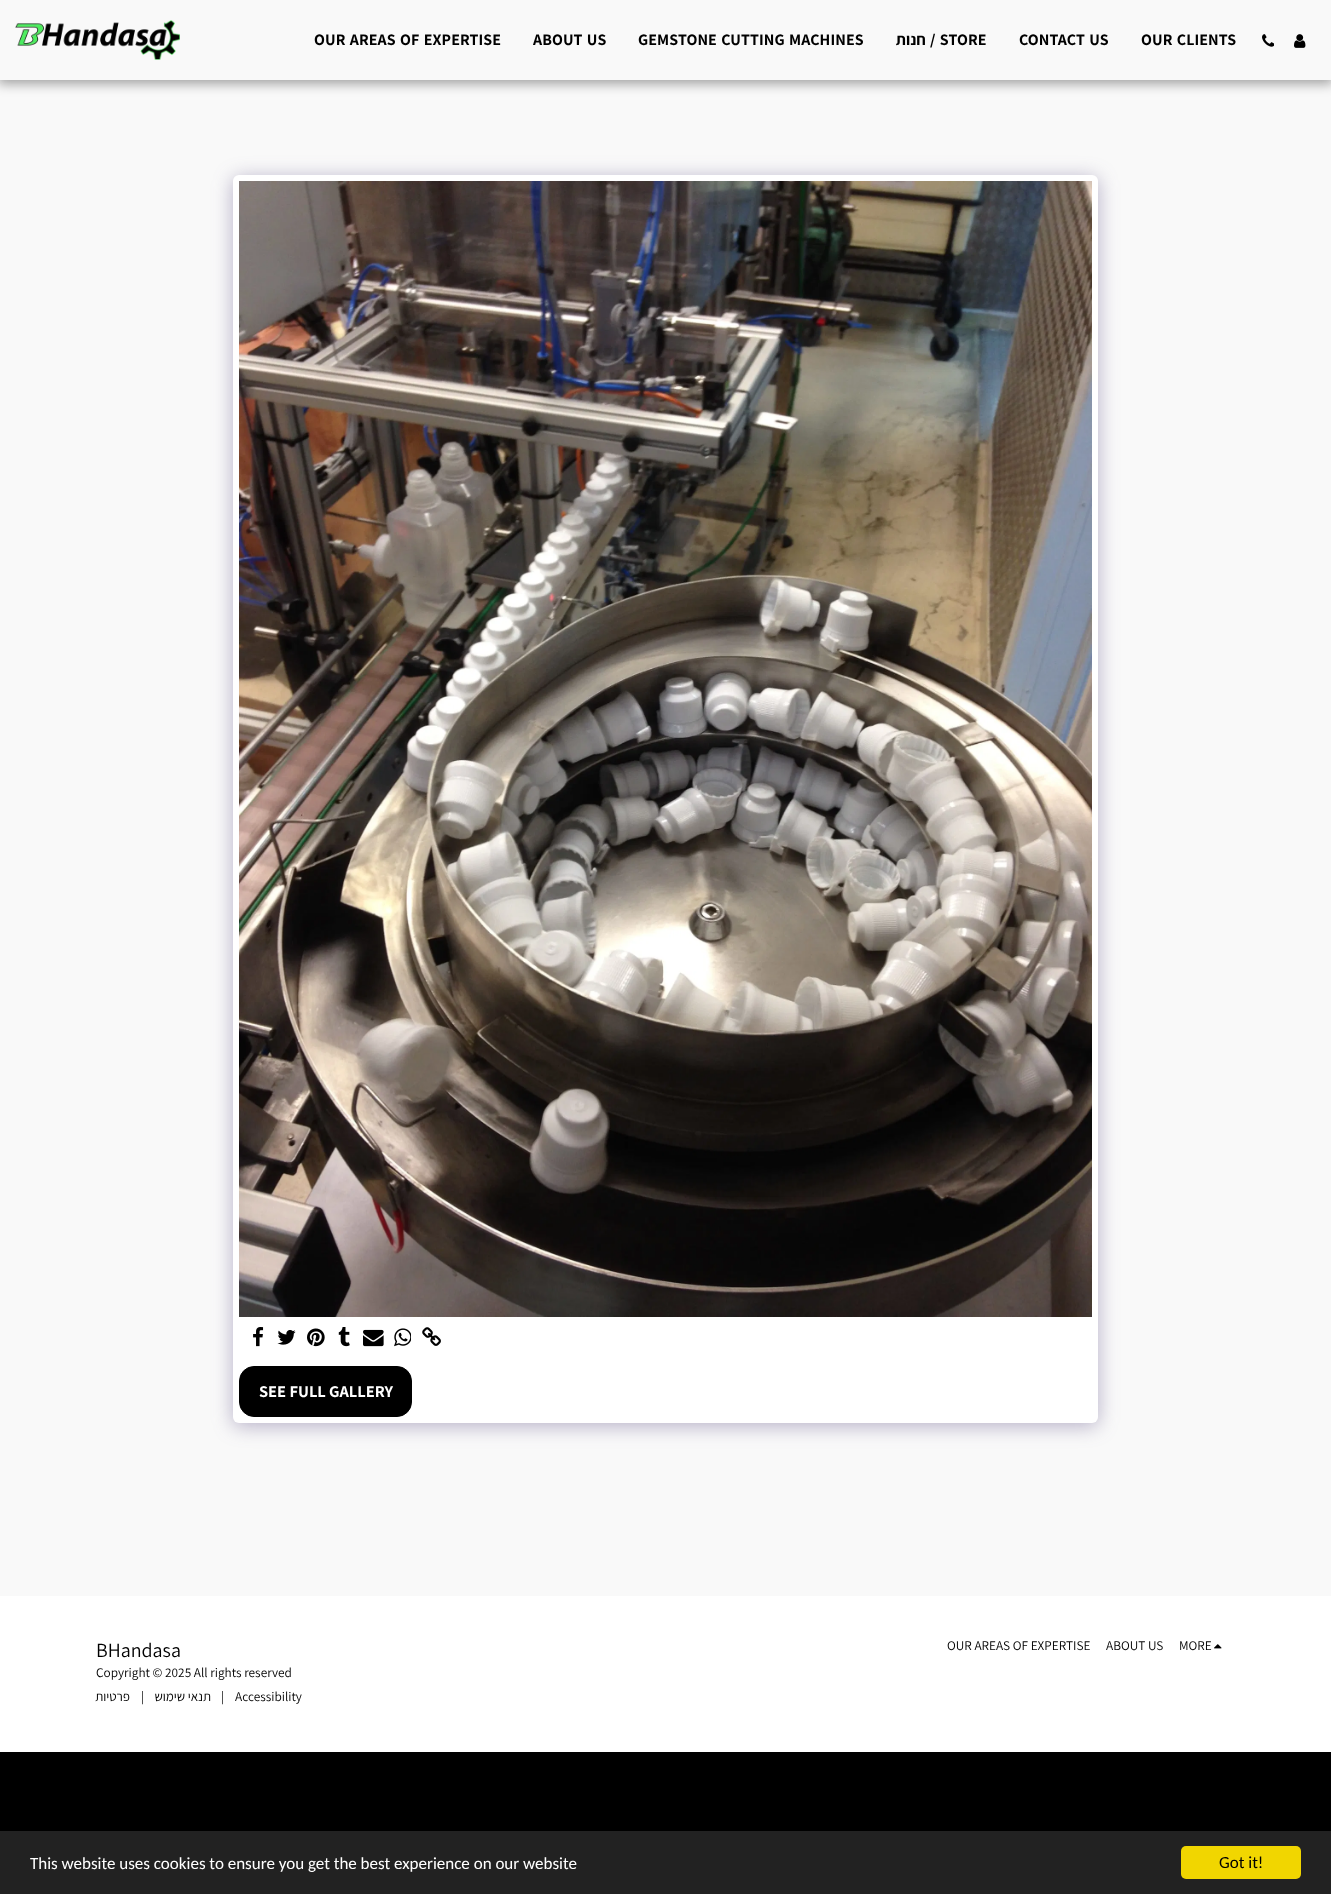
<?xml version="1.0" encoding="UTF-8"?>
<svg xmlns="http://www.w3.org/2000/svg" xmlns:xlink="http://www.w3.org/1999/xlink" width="1331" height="1894">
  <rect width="100%" height="100%" fill="#000000" />
  <rect y="80" width="1331" height="1516" fill="#f9f9f9" />
  <rect x="-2" width="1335" height="84" fill="#000000" fill-opacity="0.35" filter="blur(6px)" />
  <rect width="1331" height="80" fill="#f9f9f9" />
  <image x="15" y="20" width="165" height="40" xlink:href="image1.png" />
  <image x="1262" y="34" width="12" height="13" xlink:href="image2.png" />
  <image x="1294" y="34" width="12" height="14" xlink:href="image3.png" />
  <rect x="233" y="178" width="865" height="1248" rx="6" fill="#4d3f7a" fill-opacity="0.4" filter="blur(10px)" />
  <rect x="233" y="175" width="865" height="1248" rx="6" fill="#ffffff" />
  <image x="239" y="181" width="853" height="1136" xlink:href="image4.png" />
  <image x="253" y="1327" width="11" height="20" xlink:href="image5.png" />
  <image x="277" y="1330" width="19" height="15" xlink:href="image6.png" />
  <image x="307" y="1328" width="18" height="19" xlink:href="image7.png" />
  <image x="338" y="1327" width="12" height="20" xlink:href="image8.png" />
  <image x="363" y="1329" width="21" height="18" xlink:href="image9.png" />
  <image x="394" y="1328" width="17" height="19" xlink:href="image10.png" />
  <image x="422" y="1327" width="19" height="19" xlink:href="image11.png" />
  <rect x="239.5" y="1366.5" width="172" height="50" rx="14.5" fill="#000000" stroke="#000000" />
  <rect y="1596" width="1331" height="156" fill="#ffffff" />
  <image x="1214" y="1644" width="8" height="5" xlink:href="image12.png" />
  <rect y="1831" width="1331" height="63" fill="#222222" />
  <rect x="1181" y="1846" width="120" height="33" rx="5" fill="#f1d600" />
  <text x="314" y="45" word-spacing="1" style="font-family: Assistant; font-size: 16px; font-weight: bold; letter-spacing: 0.1px; fill: #000000">OUR AREAS OF EXPERTISE</text>
  <text x="533" y="45" word-spacing="1" style="font-family: Assistant; font-size: 16px; font-weight: bold; letter-spacing: 0.1px; fill: #000000">ABOUT US</text>
  <text x="638" y="45" word-spacing="1" style="font-family: Assistant; font-size: 16px; font-weight: bold; letter-spacing: 0.1px; fill: #000000">GEMSTONE CUTTING MACHINES</text>
  <text x="926" y="45" style="font-family: Assistant; font-size: 16px; font-weight: bold; letter-spacing: 0.1px; direction: rtl; fill: #000000">חנות</text>
  <text x="930" y="45" word-spacing="1" style="font-family: Assistant; font-size: 16px; font-weight: bold; letter-spacing: 0.1px; fill: #000000">/ STORE</text>
  <text x="1019" y="45" word-spacing="1" style="font-family: Assistant; font-size: 16px; font-weight: bold; letter-spacing: 0.1px; fill: #000000">CONTACT US</text>
  <text x="1141" y="45" word-spacing="1" style="font-family: Assistant; font-size: 16px; font-weight: bold; letter-spacing: 0.1px; fill: #000000">OUR CLIENTS</text>
  <text x="259" y="1397" style="font-family: Assistant; font-size: 16.5px; font-weight: bold; fill: #ffffff">SEE FULL GALLERY</text>
  <text x="96" y="1657" style="font-family: Assistant; font-size: 20px; fill: #000000">BHandasa</text>
  <text x="96" y="1677" style="font-family: Assistant; font-size: 13.25px; fill: #000000">Copyright © 2025 All rights reserved</text>
  <text x="130" y="1701" style="font-family: Assistant; font-size: 13.25px; direction: rtl; fill: #000000">פרטיות</text>
  <text x="141" y="1701" style="font-family: Assistant; font-size: 13.25px; fill: #000000">|</text>
  <text x="211" y="1701" style="font-family: Assistant; font-size: 13.25px; direction: rtl; fill: #000000">תנאי שימוש</text>
  <text x="221" y="1701" style="font-family: Assistant; font-size: 13.25px; fill: #000000">|</text>
  <text x="235" y="1701" style="font-family: Assistant; font-size: 13.25px; fill: #000000">Accessibility</text>
  <text x="947" y="1650" style="font-family: Assistant; font-size: 13.25px; fill: #000000">OUR AREAS OF EXPERTISE</text>
  <text x="1106" y="1650" style="font-family: Assistant; font-size: 13.25px; fill: #000000">ABOUT US</text>
  <text x="1179" y="1650" style="font-family: Assistant; font-size: 13.25px; fill: #000000">MORE</text>
  <text x="30" y="1869" style="font-family: Carlito; font-size: 17px; fill: #ffffff">This website uses cookies to ensure you get the best experience on our website</text>
  <text x="1219" y="1868" style="font-family: Carlito; font-size: 17px; fill: #000000">Got it!</text>
</svg>
